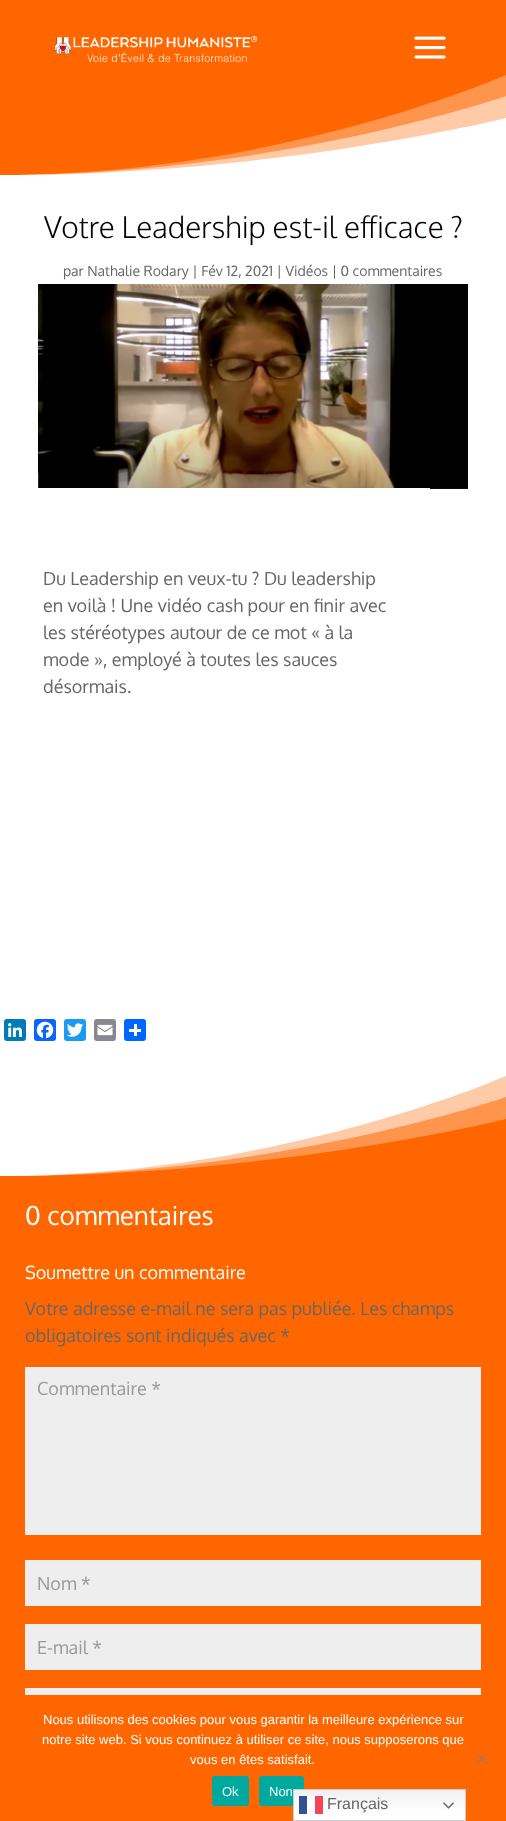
<?xml version="1.0" encoding="UTF-8"?>
<svg xmlns="http://www.w3.org/2000/svg" xmlns:xlink="http://www.w3.org/1999/xlink" width="506" height="1821">
  <defs>
    <linearGradient id="g1" gradientUnits="userSpaceOnUse" x1="380" y1="1789" x2="380" y2="1821"><stop offset="0" stop-color="#efefef" /><stop offset="0.7" stop-color="#ffffff" /></linearGradient>
  </defs>
  <rect width="100%" height="100%" fill="#ffffff" />
  <rect width="506" height="175" fill="#ff6600" />
  <image x="55" y="36" width="202" height="26" xlink:href="image1.png" />
  <image x="414" y="36" width="32" height="23" xlink:href="image2.png" />
  <path d="M 506 175 h -506 c 279 0 506 -100 506 -100 z" fill="#ff944d" />
  <path d="M 506 175 h -506 c 279 0 506 -79 506 -79 z" fill="#ffffff" fill-opacity="0.5" />
  <path d="M 506 175 h -506 c 279 0 506 -57 506 -57 z" fill="#ffffff" />
  <image x="38" y="284" width="430" height="205" xlink:href="image3.png" />
  <rect x="38" y="488" width="392" height="1" fill="#ffffff" />
  <rect x="4" y="1019" width="22" height="22" rx="3" fill="#007bb5" />
  <image x="8" y="1023" width="14" height="14" xlink:href="image4.png" />
  <rect x="34" y="1019" width="22" height="22" rx="3" fill="#0866ff" />
  <image x="36" y="1021" width="18" height="18" xlink:href="image5.png" />
  <rect x="64" y="1019" width="22" height="22" rx="3" fill="#1d9bf0" />
  <image x="67" y="1023" width="16" height="14" xlink:href="image6.png" />
  <rect x="94" y="1019" width="22" height="22" rx="3" fill="#888990" />
  <image x="97" y="1024" width="16" height="12" xlink:href="image7.png" />
  <rect x="124" y="1019" width="22" height="22" rx="3" fill="#0166ff" />
  <rect x="134" y="1024" width="3" height="12" fill="#ffffff" />
  <rect x="129" y="1029" width="12" height="3" fill="#ffffff" />
  <rect y="1119" width="506" height="702" fill="#ff6600" />
  <path d="M 506 1076 v 43 c 0 0 -227 57 -506 57 v -100 z" fill="#ff944d" />
  <path d="M 506 1076 v 21 c 0 0 -227 79 -506 79 v -100 z" fill="#ffffff" fill-opacity="0.5" />
  <path d="M 506 1076 c 0 0 -227 100 -506 100 v -100 z" fill="#ffffff" />
  <rect x="25" y="1367" width="456" height="168" fill="#eeeeee" />
  <rect x="25" y="1560" width="456" height="46" fill="#eeeeee" />
  <rect x="25" y="1624" width="456" height="46" fill="#eeeeee" />
  <rect x="25" y="1688" width="456" height="7" fill="#eeeeee" />
  <path d="M 486.5 1752.5 l 1.5 1.5 l -10.5 10.5 l -1.5 -1.5 z" fill="#c07340" />
  <path d="M 476 1754 l 1.5 -1.5 l 10.5 10.5 l -1.5 1.5 z" fill="#c07340" />
  <rect x="212" y="1776" width="37" height="30" rx="3" fill="#00a99d" />
  <rect x="259" y="1776" width="45" height="30" rx="3" fill="#00a99d" />
  <rect x="294" y="1790" width="171" height="30" fill="url(#g1)" />
  <rect x="293.5" y="1789.5" width="172" height="31" fill="none" stroke="#cccccc" />
  <rect x="299" y="1796" width="8" height="18" fill="#335198" />
  <rect x="307" y="1796" width="8" height="18" fill="#ffffff" fill-opacity="0.8" />
  <rect x="315" y="1796" width="8" height="18" fill="#f54659" />
  <image x="443" y="1802" width="11" height="7" xlink:href="image8.png" />
  <text x="44" y="238" style="font-family: Oxygen; font-size: 30px; font-weight: 300; fill: #0a0002">Votre Leadership est-il efficace ?</text>
  <text x="63" y="276" style="font-family: Oxygen; font-size: 14px; fill: #666666">par Nathalie Rodary | Fév 12, 2021 | Vidéos | 0 commentaires</text>
  <text x="43" y="585" style="font-family: Oxygen; font-size: 18px; fill: #666666">Du Leadership en veux-tu ? Du leadership</text>
  <text x="43" y="612" style="font-family: Oxygen; font-size: 18px; fill: #666666">en voilà ! Une vidéo cash pour en finir avec</text>
  <text x="43" y="639" style="font-family: Oxygen; font-size: 18px; fill: #666666">les stéréotypes autour de ce mot « à la</text>
  <text x="43" y="666" style="font-family: Oxygen; font-size: 18px; fill: #666666">mode », employé à toutes les sauces</text>
  <text x="43" y="693" style="font-family: Oxygen; font-size: 18px; fill: #666666">désormais.</text>
  <text x="25" y="1225" style="font-family: Oxygen; font-size: 26px; fill: #ffffff">0 commentaires</text>
  <text x="25" y="1279" style="font-family: Oxygen; font-size: 18px; fill: #ffffff">Soumettre un commentaire</text>
  <text x="25" y="1315" style="font-family: Oxygen; font-size: 18px; fill: #666666">Votre adresse e-mail ne sera pas publiée. Les champs</text>
  <text x="25" y="1342" style="font-family: Oxygen; font-size: 18px; fill: #666666">obligatoires sont indiqués avec *</text>
  <text x="37" y="1395" style="font-family: Oxygen; font-size: 18px; fill: #999999">Commentaire *</text>
  <text x="37" y="1590" style="font-family: Oxygen; font-size: 18px; fill: #999999">Nom *</text>
  <text x="37" y="1654" style="font-family: Oxygen; font-size: 18px; fill: #999999">E-mail *</text>
  <text x="43" y="1724" style="font-family: Liberation Sans; font-size: 13px; fill: #ffffff">Nous utilisons des cookies pour vous garantir la meilleure expérience sur</text>
  <text x="42" y="1744" style="font-family: Liberation Sans; font-size: 13px; fill: #ffffff">notre site web. Si vous continuez à utiliser ce site, nous supposerons que</text>
  <text x="190" y="1764" style="font-family: Liberation Sans; font-size: 13px; fill: #ffffff">vous en êtes satisfait.</text>
  <text x="222" y="1796" style="font-family: Liberation Sans; font-size: 13px; fill: #ffffff">Ok</text>
  <text x="269" y="1796" style="font-family: Liberation Sans; font-size: 13px; fill: #ffffff">Non</text>
  <text x="327" y="1809" style="font-family: Liberation Sans; font-size: 16px; fill: #666666">Français</text>
</svg>
